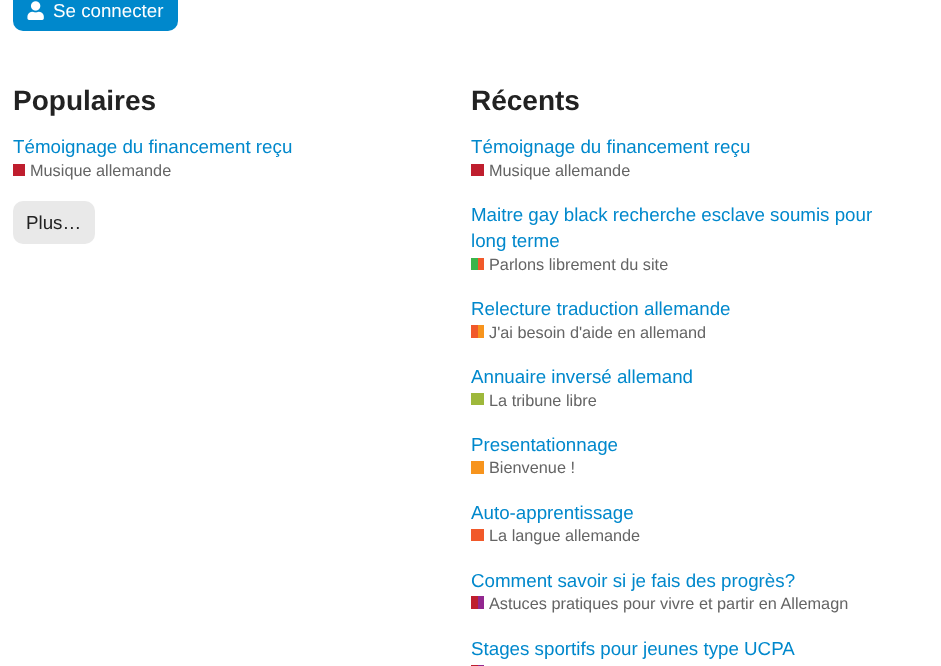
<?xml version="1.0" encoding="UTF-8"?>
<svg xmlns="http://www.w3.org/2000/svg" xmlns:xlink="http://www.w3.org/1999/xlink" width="941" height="666">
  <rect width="100%" height="100%" fill="#ffffff" />
  <rect x="13" y="-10" width="165" height="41" rx="10" fill="#0088cc" />
  <image x="27" y="1" width="17" height="19" xlink:href="image1.png" />
  <rect x="13" y="164" width="12" height="12" fill="#bf1e2e" />
  <rect x="13" y="201" width="82" height="43" rx="10" fill="#e9e9e9" />
  <rect x="471" y="164" width="13" height="12" fill="#bf1e2e" />
  <rect x="471" y="258" width="7" height="12" fill="#3ab54a" />
  <rect x="478" y="258" width="6" height="12" fill="#f1592a" />
  <rect x="471" y="325" width="7" height="13" fill="#f1592a" />
  <rect x="478" y="325" width="6" height="13" fill="#f7941d" />
  <rect x="471" y="393" width="13" height="12" fill="#9eb83b" />
  <rect x="471" y="461" width="13" height="13" fill="#f7941d" />
  <rect x="471" y="529" width="13" height="12" fill="#f1592a" />
  <rect x="471" y="596" width="7" height="13" fill="#bf1e2e" />
  <rect x="478" y="596" width="6" height="13" fill="#92278f" />
  <rect x="471" y="665" width="7" height="1" fill="#bf1e2e" />
  <rect x="478" y="665" width="6" height="1" fill="#92278f" />
  <text x="53" y="17" style="font-family: Liberation Sans; font-size: 18.75px; fill: #ffffff">Se connecter</text>
  <text x="13" y="110" style="font-family: Liberation Sans; font-size: 28px; font-weight: bold; fill: #222222">Populaires</text>
  <text x="13" y="153" style="font-family: Liberation Sans; font-size: 18.75px; fill: #0088cc">Témoignage du financement reçu</text>
  <text x="30" y="176" style="font-family: Liberation Sans; font-size: 16.3px; fill: #646464">Musique allemande</text>
  <text x="26" y="229" style="font-family: Liberation Sans; font-size: 18.75px; fill: #222222">Plus…</text>
  <text x="471" y="110" style="font-family: Liberation Sans; font-size: 28px; font-weight: bold; fill: #222222">Récents</text>
  <text x="471" y="153" style="font-family: Liberation Sans; font-size: 18.75px; fill: #0088cc">Témoignage du financement reçu</text>
  <text x="489" y="176" style="font-family: Liberation Sans; font-size: 16.3px; fill: #646464">Musique allemande</text>
  <text x="471" y="221" style="font-family: Liberation Sans; font-size: 18.75px; fill: #0088cc">Maitre gay black recherche esclave soumis pour</text>
  <text x="471" y="247" style="font-family: Liberation Sans; font-size: 18.75px; fill: #0088cc">long terme</text>
  <text x="489" y="270" style="font-family: Liberation Sans; font-size: 16.3px; fill: #646464">Parlons librement du site</text>
  <text x="471" y="315" style="font-family: Liberation Sans; font-size: 18.75px; fill: #0088cc">Relecture traduction allemande</text>
  <text x="489" y="338" style="font-family: Liberation Sans; font-size: 16.3px; fill: #646464">J'ai besoin d'aide en allemand</text>
  <text x="471" y="383" style="font-family: Liberation Sans; font-size: 18.75px; fill: #0088cc">Annuaire inversé allemand</text>
  <text x="489" y="406" style="font-family: Liberation Sans; font-size: 16.3px; fill: #646464">La tribune libre</text>
  <text x="471" y="451" style="font-family: Liberation Sans; font-size: 18.75px; fill: #0088cc">Presentationnage</text>
  <text x="489" y="473" style="font-family: Liberation Sans; font-size: 16.3px; fill: #646464">Bienvenue !</text>
  <text x="471" y="519" style="font-family: Liberation Sans; font-size: 18.75px; fill: #0088cc">Auto-apprentissage</text>
  <text x="489" y="541" style="font-family: Liberation Sans; font-size: 16.3px; fill: #646464">La langue allemande</text>
  <text x="471" y="587" style="font-family: Liberation Sans; font-size: 18.75px; fill: #0088cc">Comment savoir si je fais des progrès?</text>
  <text x="489" y="609" style="font-family: Liberation Sans; font-size: 16.3px; fill: #646464">Astuces pratiques pour vivre et partir en Allemagn</text>
  <text x="471" y="655" style="font-family: Liberation Sans; font-size: 18.75px; fill: #0088cc">Stages sportifs pour jeunes type UCPA</text>
</svg>
